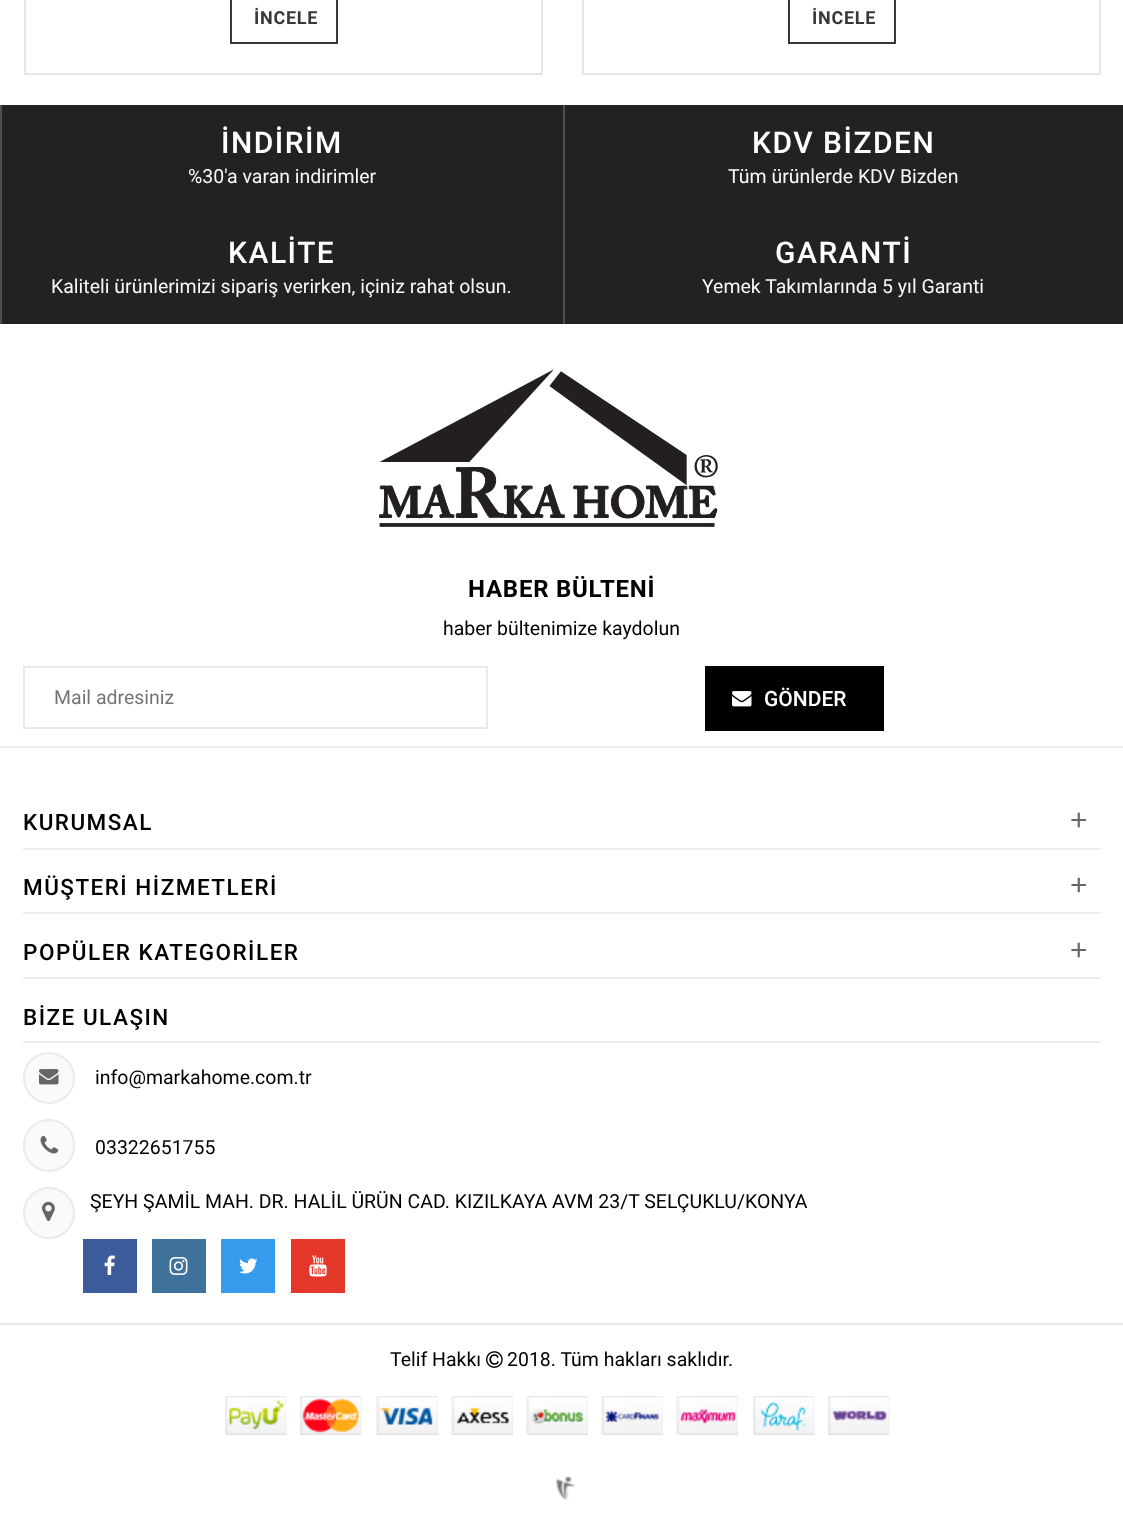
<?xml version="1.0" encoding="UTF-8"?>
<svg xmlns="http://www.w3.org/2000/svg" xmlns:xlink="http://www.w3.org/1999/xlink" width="1123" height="1516">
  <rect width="100%" height="100%" fill="#ffffff" />
  <rect x="25" y="-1" width="517" height="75" fill="none" stroke="#e6e6e6" stroke-width="2" />
  <rect x="231" y="-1" width="106" height="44" fill="none" stroke="#383838" stroke-width="2" />
  <rect x="583" y="-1" width="517" height="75" fill="none" stroke="#e6e6e6" stroke-width="2" />
  <rect x="789" y="-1" width="106" height="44" fill="none" stroke="#383838" stroke-width="2" />
  <rect x="2" y="105" width="1121" height="219" fill="#222222" />
  <rect y="105" width="2" height="219" fill="#4e4e4e" />
  <rect x="563" y="105" width="2" height="219" fill="#4e4e4e" />
  <rect y="746" width="1123" height="2" fill="#eeeeee" />
  <image x="379" y="369" width="339" height="158" xlink:href="image1.png" />
  <rect x="24" y="667" width="463" height="61" fill="none" stroke="#eaeaea" stroke-width="2" />
  <rect x="705" y="666" width="179" height="65" fill="#000000" />
  <image x="732" y="691" width="20" height="16" xlink:href="image2.png" />
  <rect x="23" y="848" width="1078" height="2" fill="#eeeeee" />
  <rect x="23" y="912" width="1078" height="2" fill="#eeeeee" />
  <rect x="23" y="977" width="1078" height="2" fill="#eeeeee" />
  <rect x="23" y="1041" width="1078" height="2" fill="#eeeeee" />
  <circle cx="49" cy="1078" r="25" fill="#fafafa" stroke="#eaeaea" stroke-width="2" />
  <image x="39" y="1069" width="20" height="16" xlink:href="image3.png" />
  <rect x="24" y="1120" width="50" height="51" rx="25" fill="#fafafa" stroke="#eaeaea" stroke-width="2" />
  <image x="40" y="1135" width="19" height="19" xlink:href="image4.png" />
  <circle cx="49" cy="1213" r="25" fill="#fafafa" stroke="#eaeaea" stroke-width="2" />
  <image x="42" y="1201" width="13" height="21" xlink:href="image5.png" />
  <rect x="83" y="1239" width="54" height="54" fill="#3c5b9b" />
  <image x="104" y="1255" width="11" height="20" xlink:href="image6.png" />
  <rect x="152" y="1239" width="54" height="54" fill="#3f729b" />
  <image x="169" y="1257" width="19" height="18" xlink:href="image7.png" />
  <rect x="221" y="1239" width="54" height="54" fill="#359bed" />
  <image x="239" y="1258" width="19" height="16" xlink:href="image8.png" />
  <rect x="291" y="1239" width="54" height="54" fill="#e33729" />
  <image x="309" y="1255" width="18" height="22" xlink:href="image9.png" />
  <rect y="1323" width="1123" height="2" fill="#eaeaea" />
  <image x="486" y="1351" width="17" height="17" xlink:href="image10.png" />
  <image x="225" y="1396" width="62" height="39" xlink:href="image11.png" />
  <image x="300" y="1396" width="62" height="39" xlink:href="image12.png" />
  <image x="376" y="1396" width="62" height="39" xlink:href="image13.png" />
  <image x="451" y="1396" width="62" height="39" xlink:href="image14.png" />
  <image x="526" y="1396" width="62" height="39" xlink:href="image15.png" />
  <image x="601" y="1396" width="62" height="39" xlink:href="image16.png" />
  <image x="676" y="1396" width="62" height="39" xlink:href="image17.png" />
  <image x="753" y="1396" width="62" height="39" xlink:href="image18.png" />
  <image x="828" y="1396" width="62" height="39" xlink:href="image19.png" />
  <image x="556" y="1476" width="20" height="25" xlink:href="image20.png" />
  <text x="254" y="24" style="font-family: Roboto; font-size: 18px; font-weight: bold; letter-spacing: 0.75px; fill: #383838">İNCELE</text>
  <text x="812" y="24" style="font-family: Roboto; font-size: 18px; font-weight: bold; letter-spacing: 0.75px; fill: #383838">İNCELE</text>
  <text x="221" y="153" style="font-family: Roboto; font-size: 30px; font-weight: 500; letter-spacing: 1.5px; fill: #ffffff">İNDİRİM</text>
  <text x="188" y="183" style="font-family: Roboto; font-size: 19.5px; fill: #f8f8f8">%30'a varan indirimler</text>
  <text x="752" y="153" style="font-family: Roboto; font-size: 30px; font-weight: 500; letter-spacing: 1.5px; fill: #ffffff">KDV BİZDEN</text>
  <text x="728" y="183" style="font-family: Roboto; font-size: 19.5px; fill: #f8f8f8">Tüm ürünlerde KDV Bizden</text>
  <text x="228" y="263" style="font-family: Roboto; font-size: 30px; font-weight: 500; letter-spacing: 1.5px; fill: #ffffff">KALİTE</text>
  <text x="51" y="293" style="font-family: Roboto; font-size: 19.5px; fill: #f8f8f8">Kaliteli ürünlerimizi sipariş verirken, içiniz rahat olsun.</text>
  <text x="775" y="263" style="font-family: Roboto; font-size: 30px; font-weight: 500; letter-spacing: 1.5px; fill: #ffffff">GARANTİ</text>
  <text x="702" y="293" style="font-family: Roboto; font-size: 19.5px; fill: #f8f8f8">Yemek Takımlarında 5 yıl Garanti</text>
  <text x="468" y="597" style="font-family: Roboto; font-size: 24px; font-weight: bold; letter-spacing: 0.75px; fill: #000000">HABER BÜLTENİ</text>
  <text x="443" y="635" style="font-family: Roboto; font-size: 19.5px; fill: #000000">haber bültenimize kaydolun</text>
  <text x="54" y="704" style="font-family: Roboto; font-size: 19.5px; fill: #757575">Mail adresiniz</text>
  <text x="764" y="706" style="font-family: Roboto; font-size: 21px; font-weight: 500; fill: #ffffff">GÖNDER</text>
  <text x="23" y="830" style="font-family: Roboto; font-size: 22.5px; font-weight: 500; letter-spacing: 1.5px; fill: #000000">KURUMSAL</text>
  <text x="1070" y="830" style="font-family: Liberation Sans; font-size: 30px; letter-spacing: 1.5px; fill: #666666">+</text>
  <text x="23" y="895" style="font-family: Roboto; font-size: 22.5px; font-weight: 500; letter-spacing: 1.5px; fill: #000000">MÜŞTERİ HİZMETLERİ</text>
  <text x="1070" y="895" style="font-family: Liberation Sans; font-size: 30px; letter-spacing: 1.5px; fill: #666666">+</text>
  <text x="23" y="960" style="font-family: Roboto; font-size: 22.5px; font-weight: 500; letter-spacing: 1.5px; fill: #000000">POPÜLER KATEGORİLER</text>
  <text x="1070" y="960" style="font-family: Liberation Sans; font-size: 30px; letter-spacing: 1.5px; fill: #666666">+</text>
  <text x="23" y="1025" style="font-family: Roboto; font-size: 22.5px; font-weight: 500; letter-spacing: 1.5px; fill: #000000">BİZE ULAŞIN</text>
  <text x="95" y="1084" style="font-family: Roboto; font-size: 19.5px; fill: #000000">info@markahome.com.tr</text>
  <text x="95" y="1154" style="font-family: Roboto; font-size: 19.5px; fill: #000000">03322651755</text>
  <text x="90" y="1208" style="font-family: Roboto; font-size: 19.5px; fill: #000000">ŞEYH ŞAMİL MAH. DR. HALİL ÜRÜN CAD. KIZILKAYA AVM 23/T SELÇUKLU/KONYA</text>
  <text x="390" y="1366" style="font-family: Roboto; font-size: 19.5px; fill: #000000">Telif Hakkı</text>
  <text x="507" y="1366" style="font-family: Roboto; font-size: 19.5px; fill: #000000">2018. Tüm hakları saklıdır.</text>
</svg>
